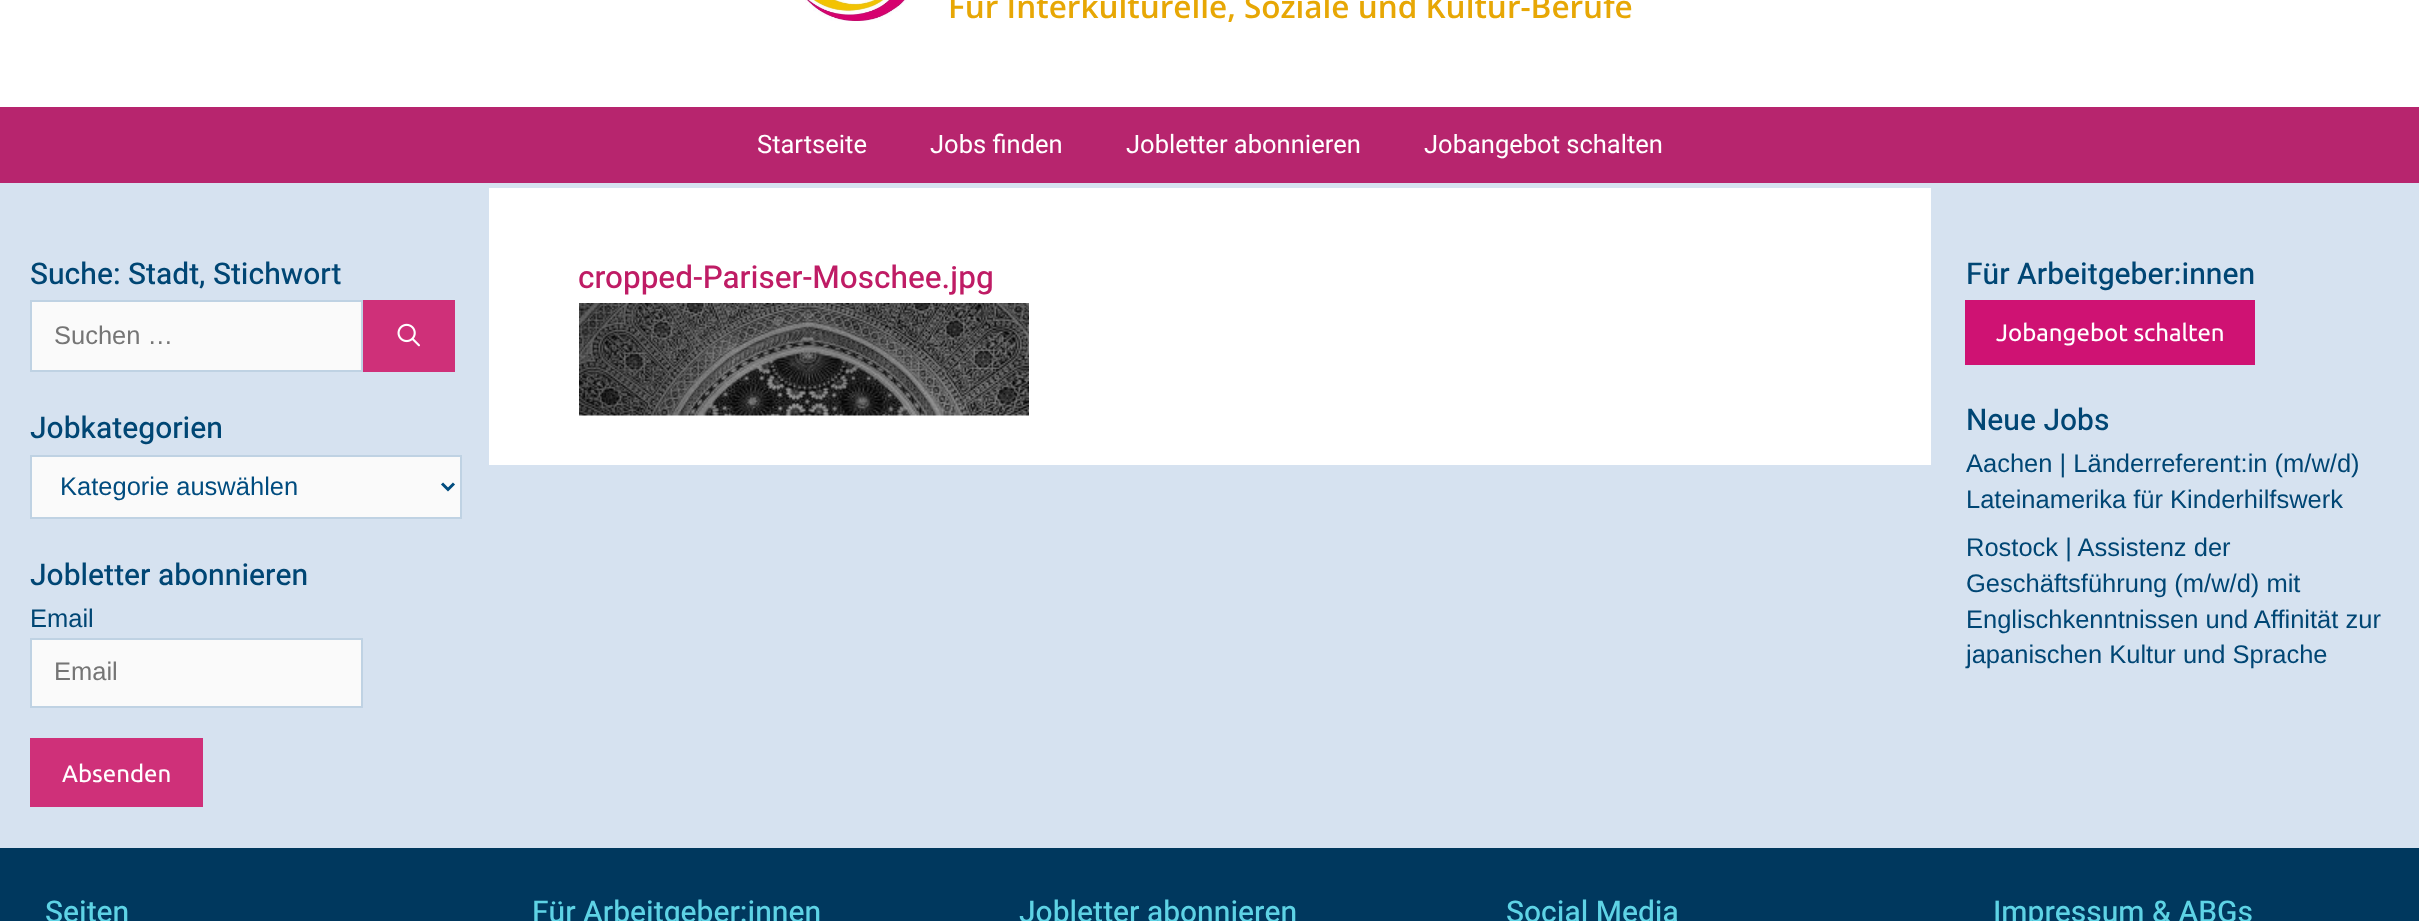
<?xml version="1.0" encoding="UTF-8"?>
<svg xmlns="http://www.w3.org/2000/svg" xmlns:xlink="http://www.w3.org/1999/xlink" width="2419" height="921">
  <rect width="100%" height="100%" fill="#d6e2f0" />
  <rect width="2419" height="107" fill="#ffffff" />
  <image x="805" y="0" width="102" height="21" xlink:href="image1.png" />
  <rect y="107" width="2419" height="76" fill="#b7256e" />
  <rect x="31" y="301" width="331" height="70" fill="#fafafa" stroke="#bfd2e3" stroke-width="2" />
  <rect x="363" y="300" width="92" height="72" fill="#cf3079" />
  <image x="397" y="323" width="23" height="24" xlink:href="image2.png" />
  <rect x="31" y="456" width="430" height="62" fill="#fafafa" stroke="#bfd2e3" stroke-width="2" />
  <path d="M 442 483.5 l 6 6 l 6 -6" fill="none" stroke="#004c7f" stroke-width="3" />
  <rect x="31" y="639" width="331" height="68" fill="#fafafa" stroke="#bfd2e3" stroke-width="2" />
  <rect x="30" y="738" width="173" height="69" fill="#cf3079" />
  <rect x="489" y="188" width="1442" height="277" fill="#ffffff" />
  <image x="579" y="303" width="450" height="113" xlink:href="image3.png" />
  <rect x="1965" y="300" width="290" height="65" fill="#cf1273" />
  <rect y="848" width="2419" height="73" fill="#00385e" />
  <text x="948" y="18" style="font-family: Open Sans; font-size: 31.5px; font-weight: 600; fill: #e7a705">Für Interkulturelle, Soziale und Kultur-Berufe</text>
  <text x="757" y="153" style="font-family: Heebo; font-size: 25.5px; fill: #ffffff">Startseite</text>
  <text x="930" y="153" style="font-family: Heebo; font-size: 25.5px; fill: #ffffff">Jobs finden</text>
  <text x="1126" y="153" style="font-family: Heebo; font-size: 25.5px; fill: #ffffff">Jobletter abonnieren</text>
  <text x="1424" y="153" style="font-family: Heebo; font-size: 25.5px; fill: #ffffff">Jobangebot schalten</text>
  <text x="30" y="284" style="font-family: Heebo; font-size: 30px; font-weight: 500; fill: #004674">Suche: Stadt, Stichwort</text>
  <text x="54" y="344" style="font-family: Liberation Sans; font-size: 25.5px; fill: #757575">Suchen …</text>
  <text x="30" y="438" style="font-family: Heebo; font-size: 30px; font-weight: 500; fill: #004674">Jobkategorien</text>
  <text x="60" y="495" style="font-family: Liberation Sans; font-size: 25.5px; fill: #004c7f">Kategorie auswählen</text>
  <text x="30" y="585" style="font-family: Heebo; font-size: 30px; font-weight: 500; fill: #004674">Jobletter abonnieren</text>
  <text x="30" y="627" style="font-family: Liberation Sans; font-size: 25.5px; fill: #004674">Email</text>
  <text x="54" y="680" style="font-family: Liberation Sans; font-size: 25.5px; fill: #757575">Email</text>
  <text x="62" y="782" style="font-family: Ubuntu; font-size: 24px; fill: #ffffff">Absenden</text>
  <text x="578" y="288" style="font-family: Heebo; font-size: 31.5px; font-weight: 500; fill: #bf1c65">cropped-Pariser-Moschee.jpg</text>
  <text x="1966" y="284" style="font-family: Heebo; font-size: 30px; font-weight: 500; fill: #004674">Für Arbeitgeber:innen</text>
  <text x="1996" y="341" style="font-family: Ubuntu; font-size: 24px; fill: #ffffff">Jobangebot schalten</text>
  <text x="1966" y="430" style="font-family: Heebo; font-size: 30px; font-weight: 500; fill: #004674">Neue Jobs</text>
  <text x="1966" y="472" style="font-family: Liberation Sans; font-size: 25.5px; fill: #004674">Aachen | Länderreferent:in (m/w/d)</text>
  <text x="1966" y="508" style="font-family: Liberation Sans; font-size: 25.5px; fill: #004674">Lateinamerika für Kinderhilfswerk</text>
  <text x="1966" y="556" style="font-family: Liberation Sans; font-size: 25.5px; fill: #004674">Rostock | Assistenz der</text>
  <text x="1966" y="592" style="font-family: Liberation Sans; font-size: 25.5px; fill: #004674">Geschäftsführung (m/w/d) mit</text>
  <text x="1966" y="628" style="font-family: Liberation Sans; font-size: 25.5px; fill: #004674">Englischkenntnissen und Affinität zur</text>
  <text x="1966" y="663" style="font-family: Liberation Sans; font-size: 25.5px; fill: #004674">japanischen Kultur und Sprache</text>
  <text x="45" y="922" style="font-family: Heebo; font-size: 30px; font-weight: 500; fill: #5ed3e5">Seiten</text>
  <text x="532" y="922" style="font-family: Heebo; font-size: 30px; font-weight: 500; fill: #5ed3e5">Für Arbeitgeber:innen</text>
  <text x="1019" y="922" style="font-family: Heebo; font-size: 30px; font-weight: 500; fill: #5ed3e5">Jobletter abonnieren</text>
  <text x="1506" y="922" style="font-family: Heebo; font-size: 30px; font-weight: 500; fill: #5ed3e5">Social Media</text>
  <text x="1993" y="922" style="font-family: Heebo; font-size: 30px; font-weight: 500; fill: #5ed3e5">Impressum &amp; ABGs</text>
</svg>
